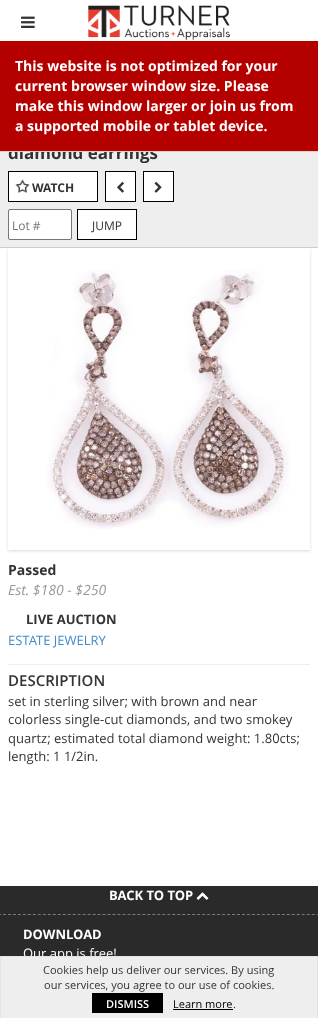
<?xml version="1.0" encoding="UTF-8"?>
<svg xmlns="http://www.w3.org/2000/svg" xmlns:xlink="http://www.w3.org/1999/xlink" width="318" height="1018">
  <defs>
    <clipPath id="clip1"><path d="M 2 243 h 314 v 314 h -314 z m 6 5 h 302 v 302 h -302 z" clip-rule="evenodd" /></clipPath>
  </defs>
  <rect width="100%" height="100%" fill="#ffffff" />
  <image x="21" y="16" width="14" height="12" xlink:href="image1.png" />
  <image x="88" y="5" width="142" height="35" xlink:href="image2.png" />
  <rect y="152" width="318" height="95" fill="#eeeeee" />
  <rect y="247" width="318" height="1" fill="#cccccc" />
  <rect x="8.5" y="171.5" width="89" height="30" fill="#ffffff" stroke="#000000" />
  <image x="15" y="179" width="15" height="14" xlink:href="image3.png" />
  <rect x="105.5" y="171.5" width="30" height="30" fill="#ffffff" stroke="#000000" />
  <image x="117" y="181" width="7" height="12" xlink:href="image4.png" />
  <rect x="143.5" y="171.5" width="30" height="30" fill="#ffffff" stroke="#000000" />
  <image x="154" y="181" width="8" height="12" xlink:href="image5.png" />
  <rect x="8.5" y="209.5" width="63" height="30" rx="1.5" fill="#ffffff" stroke="#767676" />
  <rect x="77.5" y="209.5" width="59" height="30" fill="#ffffff" stroke="#000000" />
  <g clip-path="url(#clip1)">
    <rect x="8" y="249" width="302" height="302" fill="#dad9d7" filter="blur(1.5px)" />
  </g>
  <image x="47" y="270" width="243" height="259" xlink:href="image6.png" />
  <rect x="8" y="664" width="302" height="1" fill="#eeeeee" />
  <rect y="886" width="318" height="70" fill="#2a2a2a" />
  <path d="M -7 914.5 h 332" fill="none" stroke="#7c7c7c" stroke-dasharray="3 1.98" />
  <image x="196" y="892" width="13" height="8" xlink:href="image7.png" />
  <text x="8" y="159" style="font-family: Open Sans; font-size: 17px; font-weight: bold; fill: #333333">diamond earrings</text>
  <rect y="41" width="318" height="110" fill="#b50000" />
  <text x="15" y="131" style="font-family: Open Sans; font-size: 14px; font-weight: bold; fill: #ffffff">a supported mobile or tablet device.</text>
  <text x="15" y="111" style="font-family: Open Sans; font-size: 14px; font-weight: bold; fill: #ffffff">make this window larger or join us from</text>
  <text x="15" y="91" style="font-family: Open Sans; font-size: 14px; font-weight: bold; fill: #ffffff">current browser window size. Please</text>
  <text x="15" y="71" style="font-family: Open Sans; font-size: 14px; font-weight: bold; fill: #ffffff">This website is not optimized for your</text>
  <rect y="151" width="318" height="1" fill="#ebccd1" />
  <text x="32" y="192" style="font-family: Open Sans; font-size: 12px; font-weight: bold; fill: #333333">WATCH</text>
  <text x="12" y="230" style="font-family: Open Sans; font-size: 12px; fill: #757575">Lot #</text>
  <text x="92" y="230" style="font-family: Open Sans; font-size: 12px; fill: #333333">JUMP</text>
  <text x="8" y="575" style="font-family: Open Sans; font-size: 14px; font-weight: bold; fill: #333333">Passed</text>
  <text x="8" y="595" style="font-family: Open Sans; font-size: 14px; font-style: italic; fill: #999999">Est. $180 - $250</text>
  <text x="26" y="624" style="font-family: Open Sans; font-size: 13px; font-weight: bold; fill: #333333">LIVE AUCTION</text>
  <text x="8" y="645" style="font-family: Open Sans; font-size: 13px; fill: #428bca">ESTATE JEWELRY</text>
  <text x="8" y="686" style="font-family: Open Sans; font-size: 15px; font-weight: 600; fill: #333333">DESCRIPTION</text>
  <text x="8" y="706" style="font-family: Open Sans; font-size: 13px; fill: #333333">set in sterling silver; with brown and near</text>
  <text x="8" y="724" style="font-family: Open Sans; font-size: 13px; fill: #333333">colorless single-cut diamonds, and two smokey</text>
  <text x="8" y="743" style="font-family: Open Sans; font-size: 13px; fill: #333333">quartz; estimated total diamond weight: 1.80cts;</text>
  <text x="8" y="761" style="font-family: Open Sans; font-size: 13px; fill: #333333">length: 1 1/2in.</text>
  <text x="109" y="900" style="font-family: Open Sans; font-size: 13px; font-weight: bold; fill: #ffffff">BACK TO TOP</text>
  <text x="23" y="939" style="font-family: Open Sans; font-size: 13px; font-weight: bold; fill: #ffffff">DOWNLOAD</text>
  <text x="23" y="958" style="font-family: Open Sans; font-size: 13px; fill: #ffffff">Our app is free!</text>
  <rect x="1" y="957" width="316" height="61" fill="#eeeeee" />
  <rect y="956" width="318" height="1" fill="#e4e4e4" />
  <rect x="317" y="956" width="1" height="62" fill="#e4e4e4" />
  <rect y="956" width="1" height="62" fill="#e4e4e4" />
  <text x="43" y="974" style="font-family: Open Sans; font-size: 11px; fill: #333333">Cookies help us deliver our services. By using</text>
  <text x="44" y="989" style="font-family: Open Sans; font-size: 11px; fill: #333333">our services, you agree to our use of cookies.</text>
  <rect x="92" y="993" width="71" height="20" fill="#000000" />
  <text x="106" y="1008" style="font-family: Open Sans; font-size: 11px; font-weight: 600; fill: #ffffff">DISMISS</text>
  <text x="173" y="1008" style="font-family: Open Sans; font-size: 11px; fill: #000000">Learn more</text>
  <rect x="173" y="1009" width="60" height="1" fill="#000000" />
  <text x="233" y="1008" style="font-family: Open Sans; font-size: 11px; fill: #333333">.</text>
</svg>
